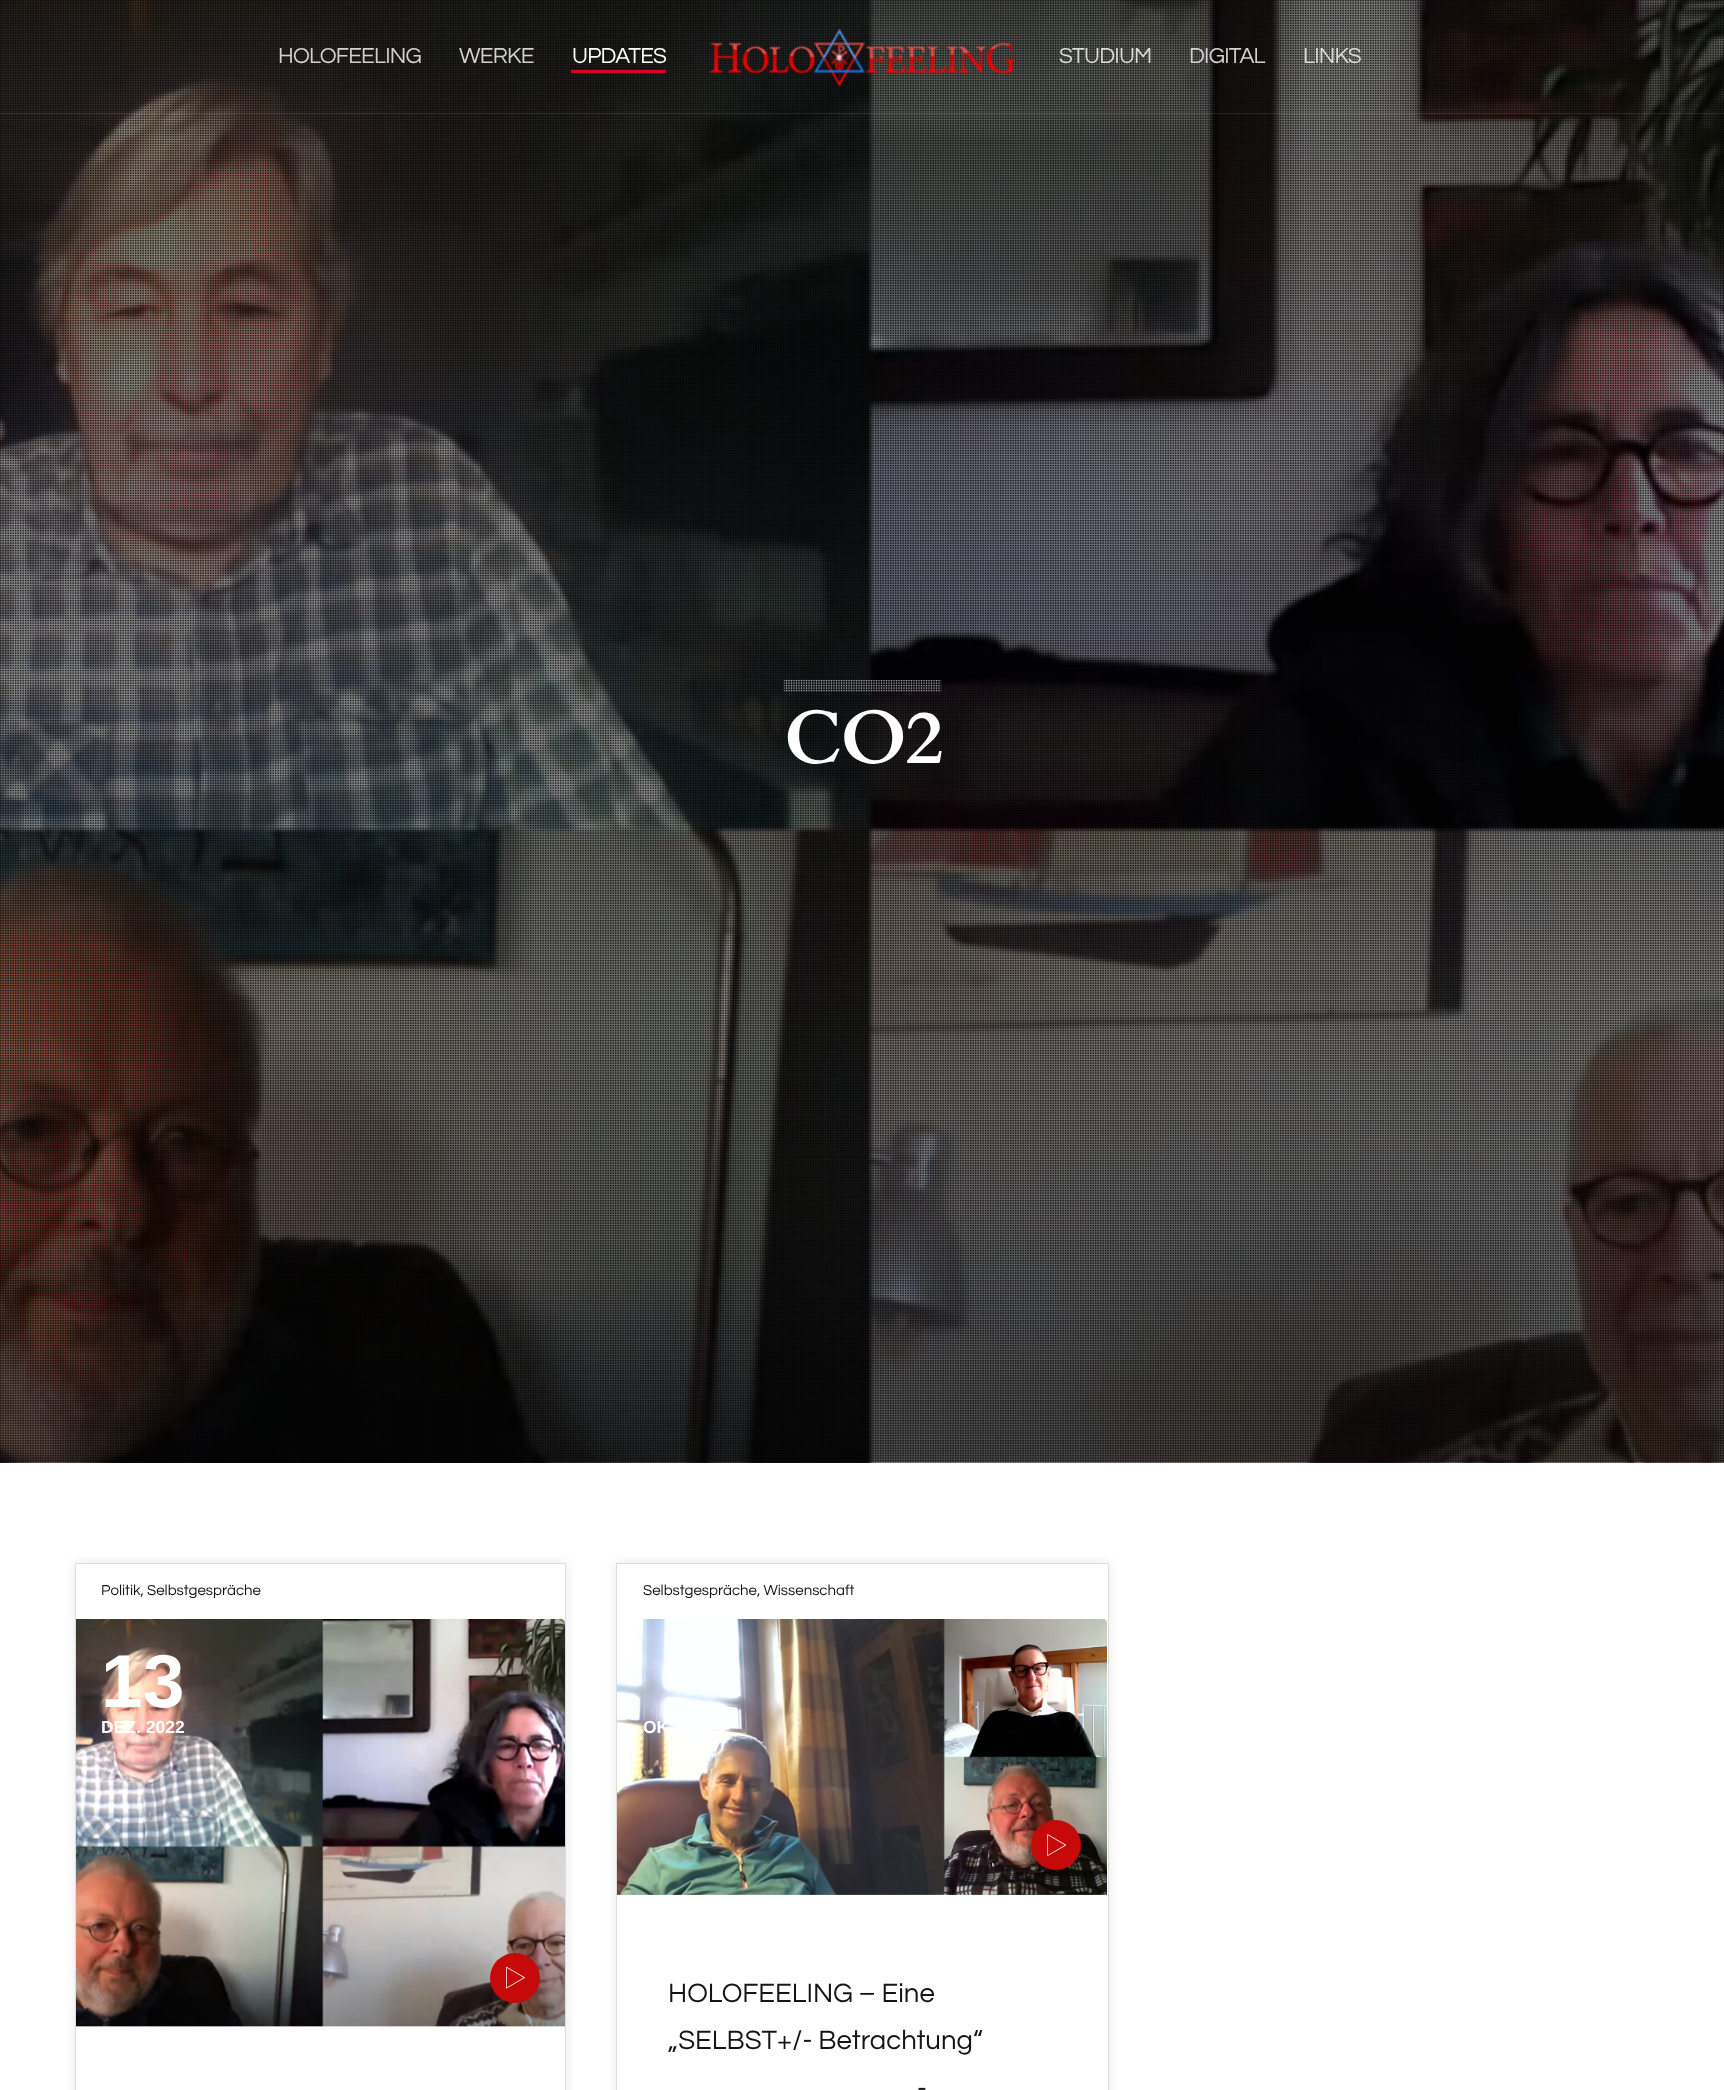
<?xml version="1.0" encoding="UTF-8"?>
<svg xmlns="http://www.w3.org/2000/svg" xmlns:xlink="http://www.w3.org/1999/xlink" width="1724" height="2090">
  <defs>
    <clipPath id="clip1"><path d="M 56 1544 h 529 v 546 h -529 z m 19 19 h 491 v 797 h -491 z" clip-rule="evenodd" /></clipPath>
  </defs>
  <rect width="100%" height="100%" fill="#ffffff" />
  <image x="0" y="0" width="1724" height="1463" xlink:href="image2.png" />
  <image x="0" y="0" width="1724" height="1463" xlink:href="image3.png" />
  <rect y="113" width="1724" height="1" fill="#ffffff" fill-opacity="0.1" />
  <rect x="571" y="70" width="95" height="3" fill="#d5051f" />
  <image x="710" y="28" width="305" height="59" xlink:href="image1.png" />
  <image x="783" y="680" width="159" height="12" xlink:href="image4.png" />
  <g clip-path="url(#clip1)">
    <rect x="75" y="1563" width="491" height="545" fill="#000000" fill-opacity="0.09" filter="blur(6px)" />
  </g>
  <rect x="75.5" y="1563.5" width="490" height="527" fill="none" stroke="#dddddd" />
  <image x="76" y="1619" width="489" height="408" xlink:href="image5.png" />
  <circle cx="515" cy="1978" r="25" fill="#c60909" />
  <image x="506" y="1966" width="19" height="23" xlink:href="image6.png" />
  <rect x="616" y="1563" width="493" height="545" fill="#000000" fill-opacity="0.09" filter="blur(6px)" />
  <rect x="616.5" y="1563.5" width="492" height="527" fill="#ffffff" stroke="#dddddd" />
  <image x="617" y="1619" width="490" height="276" xlink:href="image7.png" />
  <circle cx="1056" cy="1845" r="25" fill="#c60909" />
  <image x="1047" y="1834" width="19" height="22" xlink:href="image8.png" />
  <text x="278" y="63" style="font-family: Questrial; font-size: 22.5px; letter-spacing: -0.75px; fill: #d2d1d0">HOLOFEELING</text>
  <text x="459" y="63" style="font-family: Questrial; font-size: 22.5px; letter-spacing: -0.75px; fill: #d2d1d0">WERKE</text>
  <text x="572" y="63" style="font-family: Questrial; font-size: 22.5px; letter-spacing: -0.75px; fill: #ffffff">UPDATES</text>
  <text x="1059" y="63" style="font-family: Questrial; font-size: 22.5px; letter-spacing: -0.75px; fill: #d9d9d8">STUDIUM</text>
  <text x="1189" y="63" style="font-family: Questrial; font-size: 22.5px; letter-spacing: -0.75px; fill: #d2d1d0">DIGITAL</text>
  <text x="1303" y="63" style="font-family: Questrial; font-size: 22.5px; letter-spacing: -0.75px; fill: #d9d9d8">LINKS</text>
  <text x="784" y="763" style="font-family: Cardo; font-size: 75px; font-weight: bold; letter-spacing: -2px; fill: #ffffff">CO2</text>
  <text x="101" y="1595" style="font-family: Questrial; font-size: 15px; fill: #151515">Politik, Selbstgespräche</text>
  <text x="101" y="1707" style="font-family: Liberation Sans; font-size: 75px; font-weight: bold; fill: #ffffff">13</text>
  <text x="101" y="1733" style="font-family: Liberation Sans; font-size: 17.5px; font-weight: bold; fill: #ffffff">DEZ. 2022</text>
  <text x="643" y="1595" style="font-family: Questrial; font-size: 15px; fill: #151515">Selbstgespräche, Wissenschaft</text>
  <text x="643" y="1733" style="font-family: Liberation Sans; font-size: 17.5px; font-weight: bold; fill: #ffffff">OK</text>
  <text x="668" y="2002" style="font-family: Questrial; font-size: 27.5px; fill: #151515">HOLOFEELING – Eine</text>
  <text x="668" y="2049" style="font-family: Questrial; font-size: 27.5px; fill: #151515">„SELBST+/- Betrachtung“</text>
  <text x="917" y="2097" style="font-family: Questrial; font-size: 27.5px; fill: #151515">-</text>
</svg>
